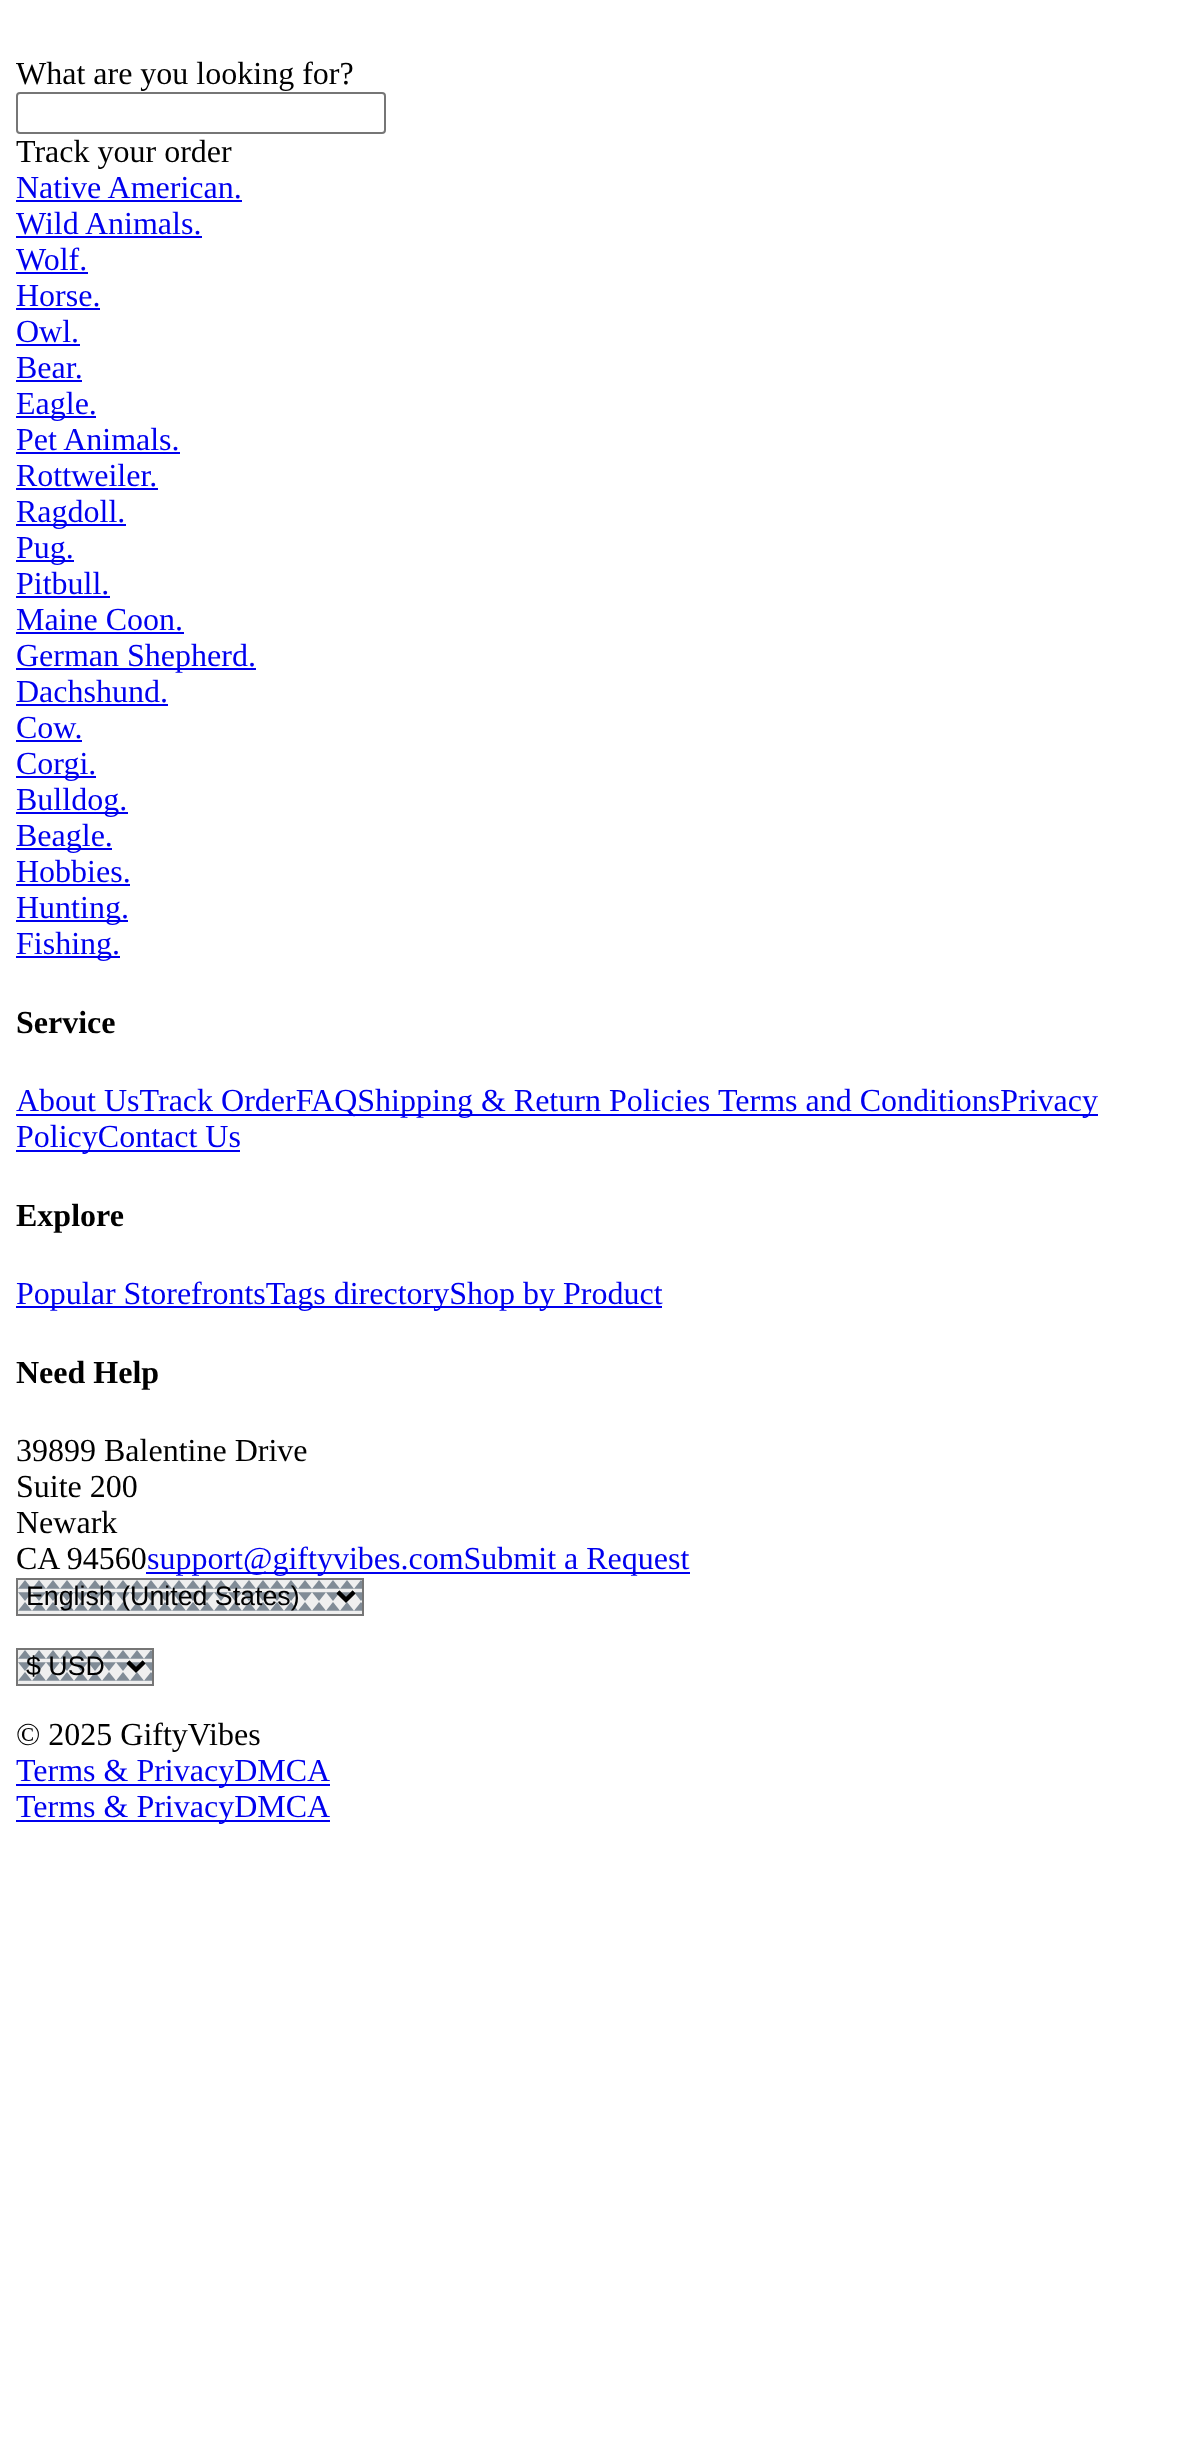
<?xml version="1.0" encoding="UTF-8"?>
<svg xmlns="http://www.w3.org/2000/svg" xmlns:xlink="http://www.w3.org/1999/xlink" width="1192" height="2449">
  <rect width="100%" height="100%" fill="#ffffff" />
  <rect x="17" y="93" width="368" height="40" rx="3" fill="none" stroke="#767676" stroke-width="2" />
  <rect x="16" y="200" width="226" height="2" fill="#0000ee" />
  <rect x="16" y="236" width="186" height="2" fill="#0000ee" />
  <rect x="16" y="272" width="72" height="2" fill="#0000ee" />
  <rect x="16" y="308" width="84" height="2" fill="#0000ee" />
  <rect x="16" y="344" width="64" height="2" fill="#0000ee" />
  <rect x="16" y="380" width="66" height="2" fill="#0000ee" />
  <rect x="16" y="416" width="80" height="2" fill="#0000ee" />
  <rect x="16" y="452" width="164" height="2" fill="#0000ee" />
  <rect x="16" y="488" width="142" height="2" fill="#0000ee" />
  <rect x="16" y="524" width="110" height="2" fill="#0000ee" />
  <rect x="16" y="560" width="58" height="2" fill="#0000ee" />
  <rect x="16" y="596" width="94" height="2" fill="#0000ee" />
  <rect x="16" y="632" width="168" height="2" fill="#0000ee" />
  <rect x="16" y="668" width="240" height="2" fill="#0000ee" />
  <rect x="16" y="704" width="152" height="2" fill="#0000ee" />
  <rect x="16" y="740" width="66" height="2" fill="#0000ee" />
  <rect x="16" y="776" width="80" height="2" fill="#0000ee" />
  <rect x="16" y="812" width="112" height="2" fill="#0000ee" />
  <rect x="16" y="848" width="96" height="2" fill="#0000ee" />
  <rect x="16" y="884" width="114" height="2" fill="#0000ee" />
  <rect x="16" y="920" width="112" height="2" fill="#0000ee" />
  <rect x="16" y="956" width="104" height="2" fill="#0000ee" />
  <rect x="16" y="1114" width="1082" height="2" fill="#0000ee" />
  <rect x="16" y="1150" width="224" height="2" fill="#0000ee" />
  <rect x="16" y="1306" width="646" height="2" fill="#0000ee" />
  <rect x="146" y="1572" width="544" height="2" fill="#0000ee" />
  <rect x="18" y="1580" width="344" height="34" fill="#efefef" />
  <image x="18" y="1580" width="344" height="31" xlink:href="image1.png" />
  <rect x="17" y="1579" width="346" height="36" fill="none" stroke="#767676" stroke-width="2" />
  <path d="M 338 1592 l 8 8 l 8 -8" fill="none" stroke="#000000" stroke-width="4" />
  <rect x="18" y="1650" width="134" height="34" fill="#efefef" />
  <image x="18" y="1650" width="134" height="31" xlink:href="image2.png" />
  <rect x="17" y="1649" width="136" height="36" fill="none" stroke="#767676" stroke-width="2" />
  <path d="M 128 1662 l 8 8 l 8 -8" fill="none" stroke="#000000" stroke-width="4" />
  <rect x="16" y="1784" width="218" height="2" fill="#0000ee" />
  <rect x="234" y="1784" width="96" height="2" fill="#0000ee" />
  <rect x="16" y="1820" width="218" height="2" fill="#0000ee" />
  <rect x="234" y="1820" width="96" height="2" fill="#0000ee" />
  <text x="16" y="84" style="font-family: Liberation Serif; font-size: 32px; fill: #000000">What are you looking for?</text>
  <text x="16" y="162" style="font-family: Liberation Serif; font-size: 32px; fill: #000000">Track your order</text>
  <text x="16" y="198" style="font-family: Liberation Serif; font-size: 32px; fill: #0000ee">Native American.</text>
  <text x="16" y="234" style="font-family: Liberation Serif; font-size: 32px; fill: #0000ee">Wild Animals.</text>
  <text x="16" y="270" style="font-family: Liberation Serif; font-size: 32px; fill: #0000ee">Wolf.</text>
  <text x="16" y="306" style="font-family: Liberation Serif; font-size: 32px; fill: #0000ee">Horse.</text>
  <text x="16" y="342" style="font-family: Liberation Serif; font-size: 32px; fill: #0000ee">Owl.</text>
  <text x="16" y="378" style="font-family: Liberation Serif; font-size: 32px; fill: #0000ee">Bear.</text>
  <text x="16" y="414" style="font-family: Liberation Serif; font-size: 32px; fill: #0000ee">Eagle.</text>
  <text x="16" y="450" style="font-family: Liberation Serif; font-size: 32px; fill: #0000ee">Pet Animals.</text>
  <text x="16" y="486" style="font-family: Liberation Serif; font-size: 32px; fill: #0000ee">Rottweiler.</text>
  <text x="16" y="522" style="font-family: Liberation Serif; font-size: 32px; fill: #0000ee">Ragdoll.</text>
  <text x="16" y="558" style="font-family: Liberation Serif; font-size: 32px; fill: #0000ee">Pug.</text>
  <text x="16" y="594" style="font-family: Liberation Serif; font-size: 32px; fill: #0000ee">Pitbull.</text>
  <text x="16" y="630" style="font-family: Liberation Serif; font-size: 32px; fill: #0000ee">Maine Coon.</text>
  <text x="16" y="666" style="font-family: Liberation Serif; font-size: 32px; fill: #0000ee">German Shepherd.</text>
  <text x="16" y="702" style="font-family: Liberation Serif; font-size: 32px; fill: #0000ee">Dachshund.</text>
  <text x="16" y="738" style="font-family: Liberation Serif; font-size: 32px; fill: #0000ee">Cow.</text>
  <text x="16" y="774" style="font-family: Liberation Serif; font-size: 32px; fill: #0000ee">Corgi.</text>
  <text x="16" y="810" style="font-family: Liberation Serif; font-size: 32px; fill: #0000ee">Bulldog.</text>
  <text x="16" y="846" style="font-family: Liberation Serif; font-size: 32px; fill: #0000ee">Beagle.</text>
  <text x="16" y="882" style="font-family: Liberation Serif; font-size: 32px; fill: #0000ee">Hobbies.</text>
  <text x="16" y="918" style="font-family: Liberation Serif; font-size: 32px; fill: #0000ee">Hunting.</text>
  <text x="16" y="954" style="font-family: Liberation Serif; font-size: 32px; fill: #0000ee">Fishing.</text>
  <text x="16" y="1033" style="font-family: Liberation Serif; font-size: 32px; font-weight: bold; fill: #000000">Service</text>
  <text x="16" y="1111" style="font-family: Liberation Serif; font-size: 32px; fill: #0000ee">About UsTrack OrderFAQShipping &amp; Return Policies</text>
  <text x="718" y="1111" style="font-family: Liberation Serif; font-size: 32px; fill: #0000ee">Terms and ConditionsPrivacy</text>
  <text x="16" y="1147" style="font-family: Liberation Serif; font-size: 32px; fill: #0000ee">PolicyContact Us</text>
  <text x="16" y="1226" style="font-family: Liberation Serif; font-size: 32px; font-weight: bold; fill: #000000">Explore</text>
  <text x="16" y="1304" style="font-family: Liberation Serif; font-size: 32px; fill: #0000ee">Popular StorefrontsTags directoryShop by Product</text>
  <text x="16" y="1383" style="font-family: Liberation Serif; font-size: 32px; font-weight: bold; fill: #000000">Need Help</text>
  <text x="16" y="1461" style="font-family: Liberation Serif; font-size: 32px; fill: #000000">39899 Balentine Drive</text>
  <text x="16" y="1497" style="font-family: Liberation Serif; font-size: 32px; fill: #000000">Suite 200</text>
  <text x="16" y="1533" style="font-family: Liberation Serif; font-size: 32px; fill: #000000">Newark</text>
  <text x="16" y="1569" style="font-family: Liberation Serif; font-size: 32px; fill: #000000">CA 94560</text>
  <text x="147" y="1569" style="font-family: Liberation Serif; font-size: 32px; fill: #0000ee">support@giftyvibes.comSubmit a Request</text>
  <text x="26" y="1605" style="font-family: Liberation Sans; font-size: 26.75px; fill: #000000">English (United States)</text>
  <text x="26" y="1675" style="font-family: Liberation Sans; font-size: 26.75px; fill: #000000">$ USD</text>
  <text x="16" y="1745" style="font-family: Liberation Serif; font-size: 32px; fill: #000000">© 2025 GiftyVibes</text>
  <text x="16" y="1781" style="font-family: Liberation Serif; font-size: 32px; fill: #0000ee">Terms &amp; PrivacyDMCA</text>
  <text x="16" y="1817" style="font-family: Liberation Serif; font-size: 32px; fill: #0000ee">Terms &amp; PrivacyDMCA</text>
</svg>
